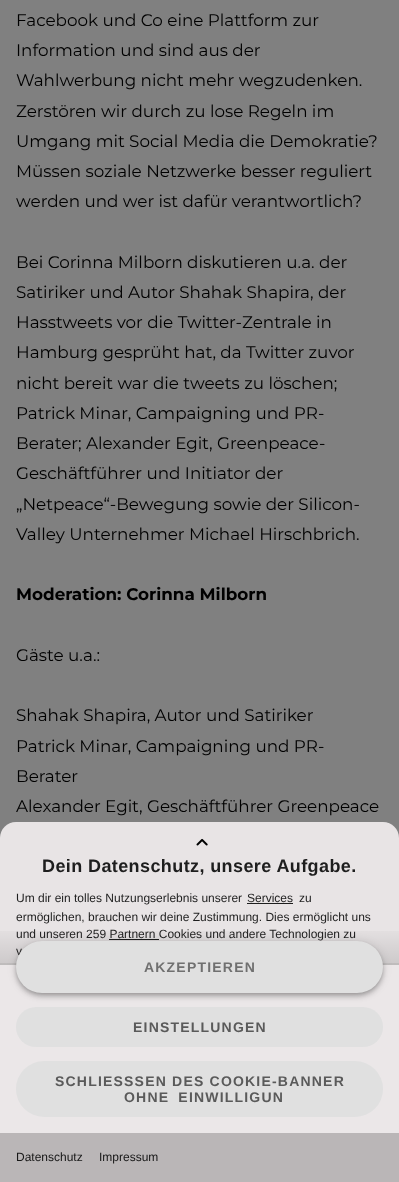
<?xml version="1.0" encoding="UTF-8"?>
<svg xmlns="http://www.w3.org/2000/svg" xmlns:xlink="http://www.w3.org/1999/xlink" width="399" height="1182">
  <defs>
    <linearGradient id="g1" gradientUnits="userSpaceOnUse" x1="200" y1="923" x2="200" y2="965"><stop offset="0" stop-color="#000000" stop-opacity="0" /><stop offset="1" stop-color="#000000" stop-opacity="0.12" /></linearGradient>
  </defs>
  <rect width="100%" height="100%" fill="#808080" />
  <path d="M 16 822 h 367 c 9 0 16 7 16 16 v 344 h -399 v -344 c 0 -9 7 -16 16 -16 z" fill="#e8e4e5" />
  <image x="196" y="838" width="12" height="8" xlink:href="image1.png" />
  <rect x="247" y="903" width="46" height="1" fill="#1e1e1e" />
  <rect x="109" y="939" width="50" height="1" fill="#1e1e1e" />
  <rect y="965" width="399" height="168" fill="#ebe7e8" />
  <rect y="963" width="399" height="2" fill="#d8d5d5" />
  <rect y="931" width="399" height="34" fill="url(#g1)" />
  <rect x="17" y="944" width="365" height="50" rx="25" fill="#000000" fill-opacity="0.2" filter="blur(2px)" />
  <rect x="16" y="1007" width="367" height="40" rx="20" fill="#e0e0e0" />
  <rect x="16" y="942" width="367" height="52" rx="26" fill="#000000" fill-opacity="0.12" filter="blur(5px)" />
  <rect x="16" y="945" width="367" height="52" rx="26" fill="#000000" fill-opacity="0.14" filter="blur(2.5px)" />
  <rect x="16" y="1061" width="367" height="56" rx="28" fill="#e0e0e0" />
  <rect y="1133" width="399" height="49" fill="#bab6b7" />
  <text x="16" y="26" style="font-family: Montserrat; font-size: 16.8px; fill: #000000">Facebook und Co eine Plattform zur</text>
  <text x="16" y="56" style="font-family: Montserrat; font-size: 16.8px; fill: #000000">Information und sind aus der</text>
  <text x="16" y="86" style="font-family: Montserrat; font-size: 16.8px; fill: #000000">Wahlwerbung nicht mehr wegzudenken.</text>
  <text x="16" y="117" style="font-family: Montserrat; font-size: 16.8px; fill: #000000">Zerstören wir durch zu lose Regeln im</text>
  <text x="16" y="147" style="font-family: Montserrat; font-size: 16.8px; fill: #000000">Umgang mit Social Media die Demokratie?</text>
  <text x="16" y="177" style="font-family: Montserrat; font-size: 16.8px; fill: #000000">Müssen soziale Netzwerke besser reguliert</text>
  <text x="16" y="207" style="font-family: Montserrat; font-size: 16.8px; fill: #000000">werden und wer ist dafür verantwortlich?</text>
  <text x="16" y="268" style="font-family: Montserrat; font-size: 16.8px; fill: #000000">Bei Corinna Milborn diskutieren u.a. der</text>
  <text x="16" y="298" style="font-family: Montserrat; font-size: 16.8px; fill: #000000">Satiriker und Autor Shahak Shapira, der</text>
  <text x="16" y="328" style="font-family: Montserrat; font-size: 16.8px; fill: #000000">Hasstweets vor die Twitter-Zentrale in</text>
  <text x="16" y="358" style="font-family: Montserrat; font-size: 16.8px; fill: #000000">Hamburg gesprüht hat, da Twitter zuvor</text>
  <text x="16" y="389" style="font-family: Montserrat; font-size: 16.8px; fill: #000000">nicht bereit war die tweets zu löschen;</text>
  <text x="16" y="419" style="font-family: Montserrat; font-size: 16.8px; fill: #000000">Patrick Minar, Campaigning und PR-</text>
  <text x="16" y="449" style="font-family: Montserrat; font-size: 16.8px; fill: #000000">Berater; Alexander Egit, Greenpeace-</text>
  <text x="16" y="479" style="font-family: Montserrat; font-size: 16.8px; fill: #000000">Geschäftführer und Initiator der</text>
  <text x="16" y="510" style="font-family: Montserrat; font-size: 16.8px; fill: #000000">„Netpeace“-Bewegung sowie der Silicon-</text>
  <text x="16" y="540" style="font-family: Montserrat; font-size: 16.8px; fill: #000000">Valley Unternehmer Michael Hirschbrich.</text>
  <text x="16" y="600" style="font-family: Montserrat; font-size: 16.8px; font-weight: bold; fill: #000000">Moderation: Corinna Milborn</text>
  <text x="16" y="661" style="font-family: Montserrat; font-size: 16.8px; fill: #000000">Gäste u.a.:</text>
  <text x="16" y="721" style="font-family: Montserrat; font-size: 16.8px; fill: #000000">Shahak Shapira, Autor und Satiriker</text>
  <text x="16" y="752" style="font-family: Montserrat; font-size: 16.8px; fill: #000000">Patrick Minar, Campaigning und PR-</text>
  <text x="16" y="782" style="font-family: Montserrat; font-size: 16.8px; fill: #000000">Berater</text>
  <text x="16" y="812" style="font-family: Montserrat; font-size: 16.8px; fill: #000000">Alexander Egit, Geschäftführer Greenpeace</text>
  <text x="42" y="872" style="font-family: Liberation Sans; font-size: 18px; font-weight: bold; letter-spacing: 0.4px; fill: #1e1e1e">Dein Datenschutz, unsere Aufgabe.</text>
  <text x="16" y="902" style="font-family: Liberation Sans; font-size: 12px; fill: #1e1e1e">Um dir ein tolles Nutzungserlebnis unserer</text>
  <text x="247" y="902" style="font-family: Liberation Sans; font-size: 12px; fill: #1e1e1e">Services</text>
  <text x="299" y="902" style="font-family: Liberation Sans; font-size: 12px; fill: #1e1e1e">zu</text>
  <text x="16" y="921" style="font-family: Liberation Sans; font-size: 12px; fill: #1e1e1e">ermöglichen, brauchen wir deine Zustimmung. Dies ermöglicht uns</text>
  <text x="16" y="938" style="font-family: Liberation Sans; font-size: 12px; fill: #1e1e1e">und unseren 259 Partnern Cookies und andere Technologien zu</text>
  <text x="16" y="955" style="font-family: Liberation Sans; font-size: 12px; fill: #1e1e1e">v</text>
  <rect x="16" y="941" width="367" height="52" rx="26" fill="#e0e0e0" />
  <text x="144" y="972" style="font-family: Liberation Sans; font-size: 14px; font-weight: bold; letter-spacing: 1.2px; fill: #707070">AKZEPTIEREN</text>
  <text x="133" y="1032" style="font-family: Liberation Sans; font-size: 14px; font-weight: bold; letter-spacing: 1.2px; fill: #5a5a5a">EINSTELLUNGEN</text>
  <text x="55" y="1086" style="font-family: Liberation Sans; font-size: 14px; font-weight: bold; letter-spacing: 1.2px; fill: #5a5a5a">SCHLIESSSEN DES COOKIE-BANNER</text>
  <text x="124" y="1102" word-spacing="4" style="font-family: Liberation Sans; font-size: 14px; font-weight: bold; letter-spacing: 1.2px; fill: #5a5a5a">OHNE EINWILLIGUN</text>
  <text x="16" y="1161" style="font-family: Liberation Sans; font-size: 12px; fill: #181818">Datenschutz</text>
  <text x="99" y="1161" style="font-family: Liberation Sans; font-size: 12px; fill: #181818">Impressum</text>
</svg>
